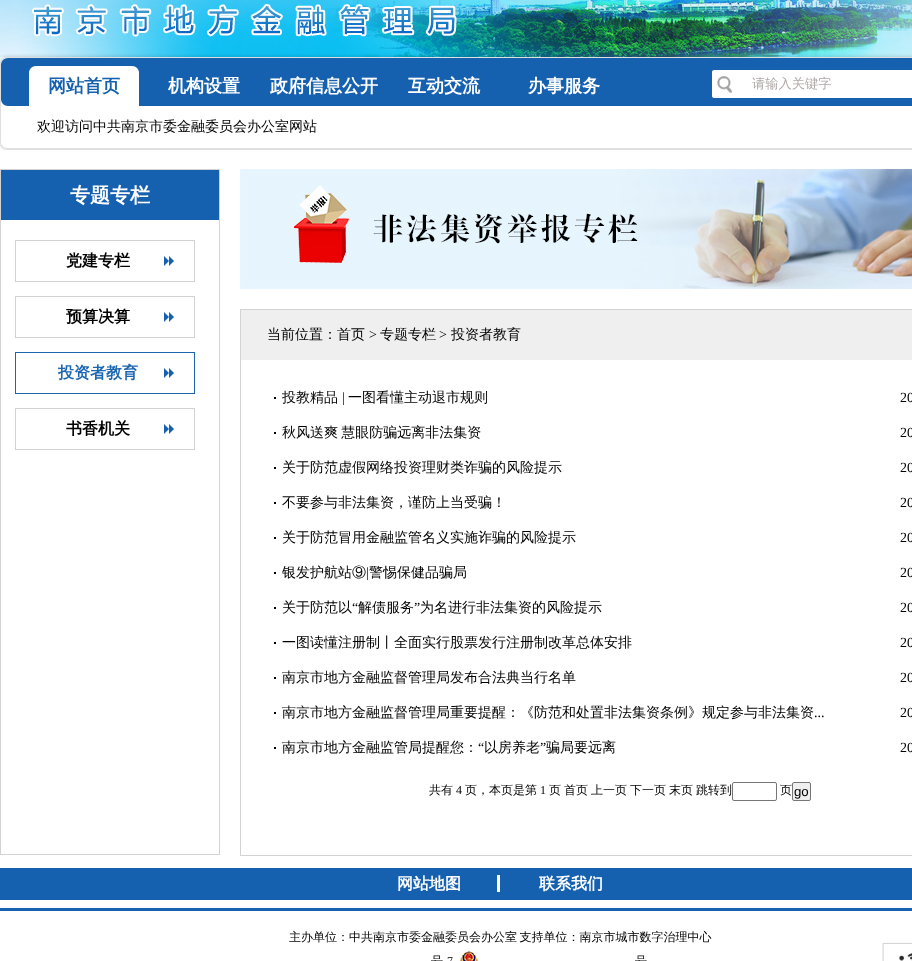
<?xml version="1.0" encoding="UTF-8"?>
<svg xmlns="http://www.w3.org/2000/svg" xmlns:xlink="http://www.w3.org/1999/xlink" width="912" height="961">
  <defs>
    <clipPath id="clip1"><path d="M 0 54 h 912 v 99 h -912 z m 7 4 h 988 c 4 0 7 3 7 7 v 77 c 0 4 -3 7 -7 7 h -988 c -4 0 -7 -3 -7 -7 v -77 c 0 -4 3 -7 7 -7 z" clip-rule="evenodd" /></clipPath>
  </defs>
  <rect width="100%" height="100%" fill="#ffffff" />
  <image x="0" y="57" width="912" height="8" xlink:href="image1.png" />
  <g clip-path="url(#clip1)">
    <rect x="-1" y="57" width="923" height="93" rx="8" fill="#e0dfdf" filter="blur(0.5px)" />
  </g>
  <image x="0" y="0" width="912" height="57" xlink:href="image2.png" />
  <path d="M 7 58 h 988 c 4 0 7 3 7 7 v 77 c 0 4 -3 7 -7 7 h -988 c -4 0 -7 -3 -7 -7 v -77 c 0 -4 3 -7 7 -7 z m 0 0 h 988 c 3 0 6 3 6 7 v 77 c 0 3 -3 6 -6 6 h -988 c -3 0 -6 -3 -6 -6 v -77 c 0 -4 3 -7 6 -7 z" fill="#e0dfdf" fill-rule="evenodd" />
  <path d="M 8 58 h 904 v 48 h -904 c -4 0 -7 -3 -7 -7 v -34 c 0 -4 3 -7 7 -7 z" fill="#1561af" />
  <path d="M 36 66 h 96 c 4 0 7 3 7 7 v 33 h -110 v -33 c 0 -4 3 -7 7 -7 z" fill="#ffffff" />
  <image x="712" y="70" width="200" height="28" xlink:href="image3.png" />
  <rect x="0.5" y="169.5" width="219" height="685" fill="none" stroke="#d3d3d3" />
  <rect x="1" y="170" width="218" height="50" fill="#1561af" />
  <image x="164" y="256" width="10" height="10" xlink:href="image4.png" />
  <rect x="15.5" y="240.5" width="179" height="41" fill="none" stroke="#d3d3d3" />
  <image x="164" y="312" width="10" height="10" xlink:href="image4.png" />
  <rect x="15.5" y="296.5" width="179" height="41" fill="none" stroke="#d3d3d3" />
  <image x="164" y="368" width="10" height="10" xlink:href="image4.png" />
  <rect x="15.5" y="352.5" width="179" height="41" fill="none" stroke="#1b65b1" />
  <image x="164" y="424" width="10" height="10" xlink:href="image4.png" />
  <rect x="15.5" y="408.5" width="179" height="41" fill="none" stroke="#d3d3d3" />
  <image x="240" y="169" width="672" height="120" xlink:href="image5.png" />
  <rect x="240.5" y="309.5" width="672" height="546" fill="none" stroke="#d3d3d3" />
  <rect x="241" y="310" width="671" height="50" fill="#efefef" />
  <rect x="274" y="397" width="2" height="2" fill="#010101" />
  <rect x="274" y="432" width="2" height="2" fill="#010101" />
  <rect x="274" y="467" width="2" height="2" fill="#010101" />
  <rect x="274" y="502" width="2" height="2" fill="#010101" />
  <rect x="274" y="537" width="2" height="2" fill="#010101" />
  <rect x="274" y="572" width="2" height="2" fill="#010101" />
  <rect x="274" y="607" width="2" height="2" fill="#010101" />
  <rect x="274" y="642" width="2" height="2" fill="#010101" />
  <rect x="274" y="677" width="2" height="2" fill="#010101" />
  <rect x="274" y="712" width="2" height="2" fill="#010101" />
  <rect x="274" y="747" width="2" height="2" fill="#010101" />
  <rect x="732.5" y="782.5" width="44" height="18" rx="1.5" fill="none" stroke="#767676" />
  <rect x="792.5" y="782.5" width="18" height="18" rx="1.5" fill="#efefef" stroke="#767676" />
  <rect y="868" width="912" height="32" fill="#1561af" />
  <rect x="497" y="875" width="3" height="17" fill="#ffffff" />
  <rect y="908" width="912" height="3" fill="#1561af" />
  <image x="460" y="951" width="18" height="10" xlink:href="image6.png" />
  <image x="882" y="942" width="30" height="19" xlink:href="image7.png" />
  <text x="48" y="92" style="font-family: WenQuanYi Zen Hei; font-size: 18px; font-weight: bold; fill: #1561af">网站首页</text>
  <text x="168" y="92" style="font-family: WenQuanYi Zen Hei; font-size: 18px; font-weight: bold; fill: #ffffff">机构设置</text>
  <text x="270" y="92" style="font-family: WenQuanYi Zen Hei; font-size: 18px; font-weight: bold; fill: #ffffff">政府信息公开</text>
  <text x="408" y="92" style="font-family: WenQuanYi Zen Hei; font-size: 18px; font-weight: bold; fill: #ffffff">互动交流</text>
  <text x="528" y="92" style="font-family: WenQuanYi Zen Hei; font-size: 18px; font-weight: bold; fill: #ffffff">办事服务</text>
  <text x="752" y="88" style="font-family: WenQuanYi Zen Hei; font-size: 13.25px; font-weight: 500; fill: #b1a9a9">请输入关键字</text>
  <text x="37" y="131" style="font-family: WenQuanYi Zen Hei; font-size: 14px; font-weight: 500; fill: #000000">欢迎访问中共南京市委金融委员会办公室网站</text>
  <text x="70" y="202" style="font-family: WenQuanYi Zen Hei; font-size: 20px; font-weight: bold; fill: #ffffff">专题专栏</text>
  <text x="66" y="266" style="font-family: WenQuanYi Zen Hei; font-size: 16px; font-weight: bold; fill: #000000">党建专栏</text>
  <text x="66" y="322" style="font-family: WenQuanYi Zen Hei; font-size: 16px; font-weight: bold; fill: #000000">预算决算</text>
  <text x="58" y="378" style="font-family: WenQuanYi Zen Hei; font-size: 16px; font-weight: bold; fill: #1b65b1">投资者教育</text>
  <text x="66" y="434" style="font-family: WenQuanYi Zen Hei; font-size: 16px; font-weight: bold; fill: #000000">书香机关</text>
  <text x="267" y="339" style="font-family: WenQuanYi Zen Hei; font-size: 14px; font-weight: 500; fill: #000000">当前位置：首页</text>
  <text x="369" y="339" style="font-family: Liberation Serif; font-size: 14px; fill: #000000">&gt;</text>
  <text x="380" y="339" style="font-family: WenQuanYi Zen Hei; font-size: 14px; font-weight: 500; fill: #000000">专题专栏</text>
  <text x="439" y="339" style="font-family: Liberation Serif; font-size: 14px; fill: #000000">&gt;</text>
  <text x="451" y="339" style="font-family: WenQuanYi Zen Hei; font-size: 14px; font-weight: 500; fill: #000000">投资者教育</text>
  <text x="282" y="402" style="font-family: WenQuanYi Zen Hei; font-size: 14px; font-weight: 500; fill: #000000">投教精品</text>
  <text x="342" y="402" style="font-family: Liberation Serif; font-size: 14px; fill: #000000">|</text>
  <text x="348" y="402" style="font-family: WenQuanYi Zen Hei; font-size: 14px; font-weight: 500; fill: #000000">一图看懂主动退市规则</text>
  <text x="900" y="402" style="font-family: Liberation Serif; font-size: 14px; fill: #000000">20</text>
  <text x="282" y="437" word-spacing="-1" style="font-family: WenQuanYi Zen Hei; font-size: 14px; font-weight: 500; fill: #000000">秋风送爽 慧眼防骗远离非法集资</text>
  <text x="900" y="437" style="font-family: Liberation Serif; font-size: 14px; fill: #000000">20</text>
  <text x="282" y="472" style="font-family: WenQuanYi Zen Hei; font-size: 14px; font-weight: 500; fill: #000000">关于防范虚假网络投资理财类诈骗的风险提示</text>
  <text x="900" y="472" style="font-family: Liberation Serif; font-size: 14px; fill: #000000">20</text>
  <text x="282" y="507" style="font-family: WenQuanYi Zen Hei; font-size: 14px; font-weight: 500; fill: #000000">不要参与非法集资，谨防上当受骗！</text>
  <text x="900" y="507" style="font-family: Liberation Serif; font-size: 14px; fill: #000000">20</text>
  <text x="282" y="542" style="font-family: WenQuanYi Zen Hei; font-size: 14px; font-weight: 500; fill: #000000">关于防范冒用金融监管名义实施诈骗的风险提示</text>
  <text x="900" y="542" style="font-family: Liberation Serif; font-size: 14px; fill: #000000">20</text>
  <text x="282" y="577" style="font-family: WenQuanYi Zen Hei; font-size: 14px; font-weight: 500; fill: #000000">银发护航站⑨</text>
  <text x="366" y="577" style="font-family: Liberation Serif; font-size: 14px; fill: #000000">|</text>
  <text x="369" y="577" style="font-family: WenQuanYi Zen Hei; font-size: 14px; font-weight: 500; fill: #000000">警惕保健品骗局</text>
  <text x="900" y="577" style="font-family: Liberation Serif; font-size: 14px; fill: #000000">20</text>
  <text x="282" y="612" style="font-family: WenQuanYi Zen Hei; font-size: 14px; font-weight: 500; fill: #000000">关于防范以</text>
  <text x="352" y="612" style="font-family: Liberation Serif; font-size: 14px; fill: #000000">“</text>
  <text x="358" y="612" style="font-family: WenQuanYi Zen Hei; font-size: 14px; font-weight: 500; fill: #000000">解债服务</text>
  <text x="414" y="612" style="font-family: Liberation Serif; font-size: 14px; fill: #000000">”</text>
  <text x="420" y="612" style="font-family: WenQuanYi Zen Hei; font-size: 14px; font-weight: 500; fill: #000000">为名进行非法集资的风险提示</text>
  <text x="900" y="612" style="font-family: Liberation Serif; font-size: 14px; fill: #000000">20</text>
  <text x="282" y="647" style="font-family: WenQuanYi Zen Hei; font-size: 14px; font-weight: 500; fill: #000000">一图读懂注册制丨全面实行股票发行注册制改革总体安排</text>
  <text x="900" y="647" style="font-family: Liberation Serif; font-size: 14px; fill: #000000">20</text>
  <text x="282" y="682" style="font-family: WenQuanYi Zen Hei; font-size: 14px; font-weight: 500; fill: #000000">南京市地方金融监督管理局发布合法典当行名单</text>
  <text x="900" y="682" style="font-family: Liberation Serif; font-size: 14px; fill: #000000">20</text>
  <text x="282" y="717" style="font-family: WenQuanYi Zen Hei; font-size: 14px; font-weight: 500; fill: #000000">南京市地方金融监督管理局重要提醒：《防范和处置非法集资条例》规定参与非法集资</text>
  <text x="814" y="717" style="font-family: Liberation Serif; font-size: 14px; fill: #000000">...</text>
  <text x="900" y="717" style="font-family: Liberation Serif; font-size: 14px; fill: #000000">20</text>
  <text x="282" y="752" style="font-family: WenQuanYi Zen Hei; font-size: 14px; font-weight: 500; fill: #000000">南京市地方金融监管局提醒您：</text>
  <text x="478" y="752" style="font-family: Liberation Serif; font-size: 14px; fill: #000000">“</text>
  <text x="484" y="752" style="font-family: WenQuanYi Zen Hei; font-size: 14px; font-weight: 500; fill: #000000">以房养老</text>
  <text x="540" y="752" style="font-family: Liberation Serif; font-size: 14px; fill: #000000">”</text>
  <text x="546" y="752" style="font-family: WenQuanYi Zen Hei; font-size: 14px; font-weight: 500; fill: #000000">骗局要远离</text>
  <text x="900" y="752" style="font-family: Liberation Serif; font-size: 14px; fill: #000000">20</text>
  <text x="429" y="794" style="font-family: WenQuanYi Zen Hei; font-size: 12px; font-weight: 500; fill: #000000">共有</text>
  <text x="456" y="794" style="font-family: Liberation Serif; font-size: 12px; fill: #000000">4</text>
  <text x="465" y="794" style="font-family: WenQuanYi Zen Hei; font-size: 12px; font-weight: 500; fill: #000000">页，本页是第</text>
  <text x="540" y="794" style="font-family: Liberation Serif; font-size: 12px; fill: #000000">1</text>
  <text x="549" y="794" style="font-family: WenQuanYi Zen Hei; font-size: 12px; font-weight: 500; fill: #000000">页</text>
  <text x="564" y="794" style="font-family: WenQuanYi Zen Hei; font-size: 12px; font-weight: 500; fill: #000000">首页</text>
  <text x="591" y="794" style="font-family: WenQuanYi Zen Hei; font-size: 12px; font-weight: 500; fill: #000000">上一页</text>
  <text x="630" y="794" style="font-family: WenQuanYi Zen Hei; font-size: 12px; font-weight: 500; fill: #000000">下一页</text>
  <text x="669" y="794" style="font-family: WenQuanYi Zen Hei; font-size: 12px; font-weight: 500; fill: #000000">末页</text>
  <text x="696" y="794" style="font-family: WenQuanYi Zen Hei; font-size: 12px; font-weight: 500; fill: #000000">跳转到</text>
  <text x="780" y="794" style="font-family: WenQuanYi Zen Hei; font-size: 12px; font-weight: 500; fill: #000000">页</text>
  <text x="794" y="796" style="font-family: Liberation Sans; font-size: 13.25px; fill: #000000">go</text>
  <text x="397" y="889" style="font-family: WenQuanYi Zen Hei; font-size: 16px; font-weight: bold; fill: #ffffff">网站地图</text>
  <text x="539" y="889" style="font-family: WenQuanYi Zen Hei; font-size: 16px; font-weight: bold; fill: #ffffff">联系我们</text>
  <text x="289" y="941" word-spacing="-1" style="font-family: WenQuanYi Zen Hei; font-size: 12px; font-weight: 500; fill: #000000">主办单位：中共南京市委金融委员会办公室 支持单位：南京市城市数字治理中心</text>
  <text x="431" y="965" style="font-family: WenQuanYi Zen Hei; font-size: 12px; font-weight: 500; fill: #000000">号</text>
  <text x="447" y="965" style="font-family: Liberation Serif; font-size: 12px; fill: #000000">7</text>
  <text x="635" y="965" style="font-family: WenQuanYi Zen Hei; font-size: 12px; font-weight: 500; fill: #000000">号</text>
</svg>
